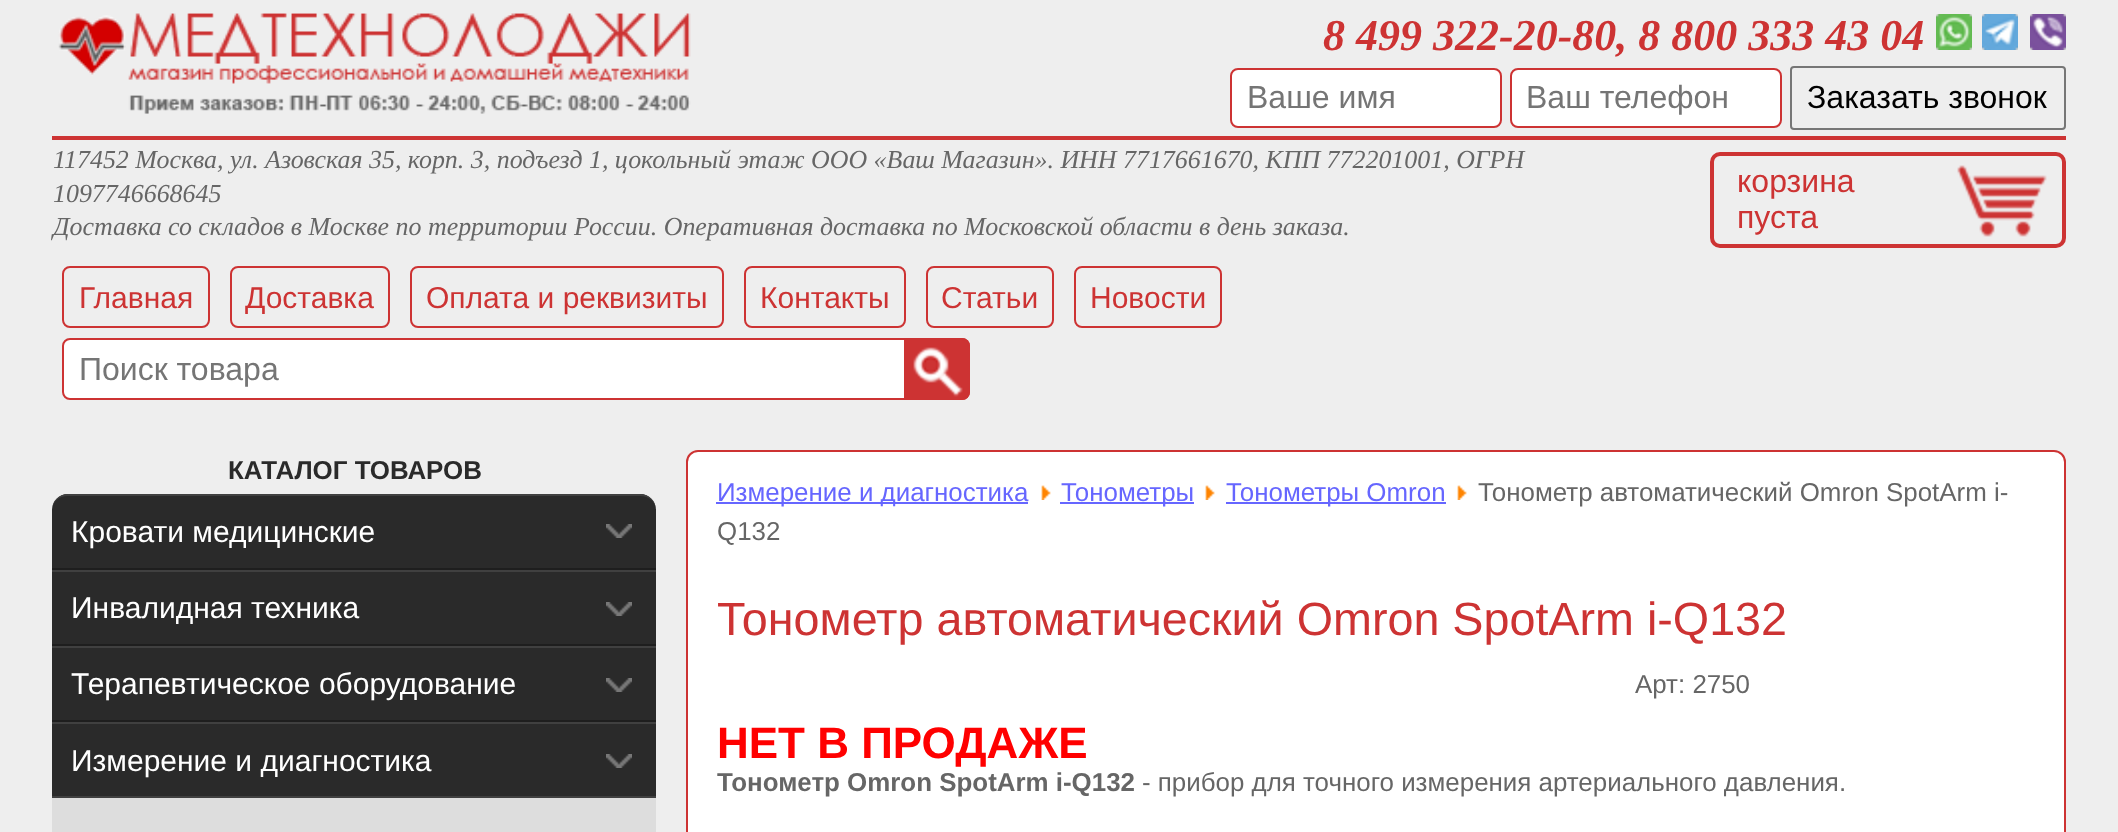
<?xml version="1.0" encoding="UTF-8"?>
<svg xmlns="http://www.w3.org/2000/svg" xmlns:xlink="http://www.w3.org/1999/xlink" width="2118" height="832">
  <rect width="100%" height="100%" fill="#eeeeee" />
  <rect x="52" y="136" width="2014" height="4" fill="#cd3333" />
  <image x="58" y="13" width="633" height="101" xlink:href="image1.png" />
  <image x="1936" y="14" width="36" height="36" xlink:href="image2.png" />
  <image x="1982" y="14" width="36" height="36" xlink:href="image3.png" />
  <image x="2030" y="14" width="36" height="36" xlink:href="image4.png" />
  <rect x="1231" y="69" width="270" height="58" rx="7" fill="#ffffff" stroke="#cd3333" stroke-width="2" />
  <rect x="1511" y="69" width="270" height="58" rx="7" fill="#ffffff" stroke="#cd3333" stroke-width="2" />
  <rect x="1791" y="67" width="274" height="62" rx="3" fill="none" stroke="#767676" stroke-width="2" />
  <image x="1957" y="165" width="90" height="72" xlink:href="image5.png" />
  <rect x="1712" y="154" width="352" height="92" rx="8" fill="none" stroke="#cd3333" stroke-width="4" />
  <rect x="63" y="267" width="146" height="60" rx="7" fill="none" stroke="#cd3333" stroke-width="2" />
  <rect x="231" y="267" width="158" height="60" rx="7" fill="none" stroke="#cd3333" stroke-width="2" />
  <rect x="411" y="267" width="312" height="60" rx="7" fill="none" stroke="#cd3333" stroke-width="2" />
  <rect x="745" y="267" width="160" height="60" rx="7" fill="none" stroke="#cd3333" stroke-width="2" />
  <rect x="927" y="267" width="126" height="60" rx="7" fill="none" stroke="#cd3333" stroke-width="2" />
  <rect x="1075" y="267" width="146" height="60" rx="7" fill="none" stroke="#cd3333" stroke-width="2" />
  <rect x="63" y="339" width="850" height="60" rx="7" fill="#ffffff" stroke="#cd3333" stroke-width="2" />
  <image x="906" y="338" width="64" height="62" xlink:href="image6.png" />
  <path d="M 905 339 h 57 c 4 0 7 3 7 7 v 46 c 0 4 -3 7 -7 7 h -57 z" fill="none" stroke="#cd3333" stroke-width="2" />
  <path d="M 68 494 h 572 c 9 0 16 7 16 16 v 60 h -604 v -60 c 0 -9 7 -16 16 -16 z" fill="#2a2a2a" />
  <path d="M 68 494 c -9 0 -16 7 -16 16 c 0 -8 7 -14 16 -14 h 572 c 9 0 16 6 16 14 c 0 -9 -7 -16 -16 -16 z" fill="#404040" />
  <rect x="52" y="568" width="604" height="2" fill="#1e1e1e" />
  <image x="606" y="524" width="26" height="14" xlink:href="image7.png" />
  <rect x="52" y="572" width="604" height="72" fill="#2a2a2a" />
  <rect x="52" y="570" width="604" height="2" fill="#404040" />
  <rect x="52" y="644" width="604" height="2" fill="#1e1e1e" />
  <image x="606" y="602" width="26" height="14" xlink:href="image7.png" />
  <rect x="52" y="648" width="604" height="72" fill="#2a2a2a" />
  <rect x="52" y="646" width="604" height="2" fill="#404040" />
  <rect x="52" y="720" width="604" height="2" fill="#1e1e1e" />
  <image x="606" y="678" width="26" height="14" xlink:href="image7.png" />
  <rect x="52" y="724" width="604" height="72" fill="#2a2a2a" />
  <rect x="52" y="722" width="604" height="2" fill="#404040" />
  <image x="606" y="754" width="26" height="14" xlink:href="image7.png" />
  <rect x="52" y="798" width="604" height="34" fill="#dddddd" />
  <rect x="52" y="796" width="604" height="2" fill="#404040" />
  <rect x="687" y="451" width="1378" height="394" rx="11" fill="#ffffff" stroke="#cd3333" stroke-width="2" />
  <rect x="716" y="502" width="312" height="2" fill="#6666ff" />
  <image x="1041" y="485" width="10" height="15" xlink:href="image8.png" />
  <rect x="1060" y="502" width="134" height="2" fill="#6666ff" />
  <image x="1205" y="485" width="10" height="15" xlink:href="image8.png" />
  <rect x="1226" y="502" width="220" height="2" fill="#6666ff" />
  <image x="1457" y="485" width="10" height="15" xlink:href="image8.png" />
  <text x="1323" y="50" style="font-family: Liberation Serif; font-size: 44px; font-weight: bold; font-style: italic; fill: #cd3333">8 499 322-20-80, 8 800 333 43 04</text>
  <text x="1247" y="108" style="font-family: Liberation Sans; font-size: 32px; fill: #757575">Ваше имя</text>
  <text x="1526" y="108" style="font-family: Liberation Sans; font-size: 32px; fill: #757575">Ваш телефон</text>
  <text x="1807" y="108" style="font-family: Liberation Sans; font-size: 32px; fill: #000000">Заказать звонок</text>
  <text x="53" y="168" style="font-family: Liberation Serif; font-size: 25.92px; font-style: italic; fill: #666666">117452 Москва, ул. Азовская 35, корп. 3, подъезд 1, цокольный этаж</text>
  <text x="811" y="168" style="font-family: Liberation Serif; font-size: 25.92px; font-style: italic; fill: #666666">ООО «Ваш Магазин». ИНН 7717661670, КПП 772201001, ОГРН</text>
  <text x="53" y="202" style="font-family: Liberation Serif; font-size: 25.92px; font-style: italic; fill: #666666">1097746668645</text>
  <text x="53" y="235" style="font-family: Liberation Serif; font-size: 25.92px; font-style: italic; fill: #666666">Доставка со складов в Москве по территории России. Оперативная доставка по Московской области в день заказа.</text>
  <text x="1737" y="192" style="font-family: Liberation Sans; font-size: 32px; fill: #cd3333">корзина</text>
  <text x="1737" y="228" style="font-family: Liberation Sans; font-size: 32px; fill: #cd3333">пуста</text>
  <text x="79" y="308" style="font-family: Liberation Sans; font-size: 30px; fill: #cd3333">Главная</text>
  <text x="245" y="308" style="font-family: Liberation Sans; font-size: 30px; fill: #cd3333">Доставка</text>
  <text x="426" y="308" style="font-family: Liberation Sans; font-size: 30px; fill: #cd3333">Оплата и реквизиты</text>
  <text x="760" y="308" style="font-family: Liberation Sans; font-size: 30px; fill: #cd3333">Контакты</text>
  <text x="941" y="308" style="font-family: Liberation Sans; font-size: 30px; fill: #cd3333">Статьи</text>
  <text x="1090" y="308" style="font-family: Liberation Sans; font-size: 30px; fill: #cd3333">Новости</text>
  <text x="79" y="380" style="font-family: Liberation Sans; font-size: 32px; fill: #757575">Поиск товара</text>
  <text x="228" y="479" style="font-family: Liberation Sans; font-size: 25.92px; font-weight: bold; fill: #2a2a2a">КАТАЛОГ ТОВАРОВ</text>
  <text x="71" y="542" style="font-family: Liberation Sans; font-size: 30px; fill: #ffffff">Кровати медицинские</text>
  <text x="71" y="618" style="font-family: Liberation Sans; font-size: 30px; fill: #ffffff">Инвалидная техника</text>
  <text x="71" y="694" style="font-family: Liberation Sans; font-size: 30px; fill: #ffffff">Терапевтическое оборудование</text>
  <text x="71" y="771" style="font-family: Liberation Sans; font-size: 30px; fill: #ffffff">Измерение и диагностика</text>
  <text x="717" y="501" style="font-family: Liberation Sans; font-size: 25.92px; fill: #6666ff">Измерение и диагностика</text>
  <text x="1061" y="501" style="font-family: Liberation Sans; font-size: 25.92px; fill: #6666ff">Тонометры</text>
  <text x="1226" y="501" style="font-family: Liberation Sans; font-size: 25.92px; fill: #6666ff">Тонометры Omron</text>
  <text x="1478" y="501" style="font-family: Liberation Sans; font-size: 25.92px; fill: #666666">Тонометр автоматический Omron SpotArm i-</text>
  <text x="717" y="540" style="font-family: Liberation Sans; font-size: 25.92px; fill: #666666">Q132</text>
  <text x="717" y="635" style="font-family: Liberation Sans; font-size: 46.7px; fill: #cd3333">Тонометр автоматический Omron SpotArm i-Q132</text>
  <text x="1635" y="693" style="font-family: Liberation Sans; font-size: 25.92px; fill: #666666">Арт: 2750</text>
  <text x="717" y="758" style="font-family: Liberation Sans; font-size: 44px; font-weight: bold; fill: #ff0000">НЕТ В ПРОДАЖЕ</text>
  <text x="717" y="791" style="font-family: Liberation Sans; font-size: 25.92px; font-weight: bold; fill: #666666">Тонометр Omron SpotArm i-Q132</text>
  <text x="1142" y="791" style="font-family: Liberation Sans; font-size: 25.92px; fill: #666666">- прибор для точного измерения артериального давления.</text>
</svg>
